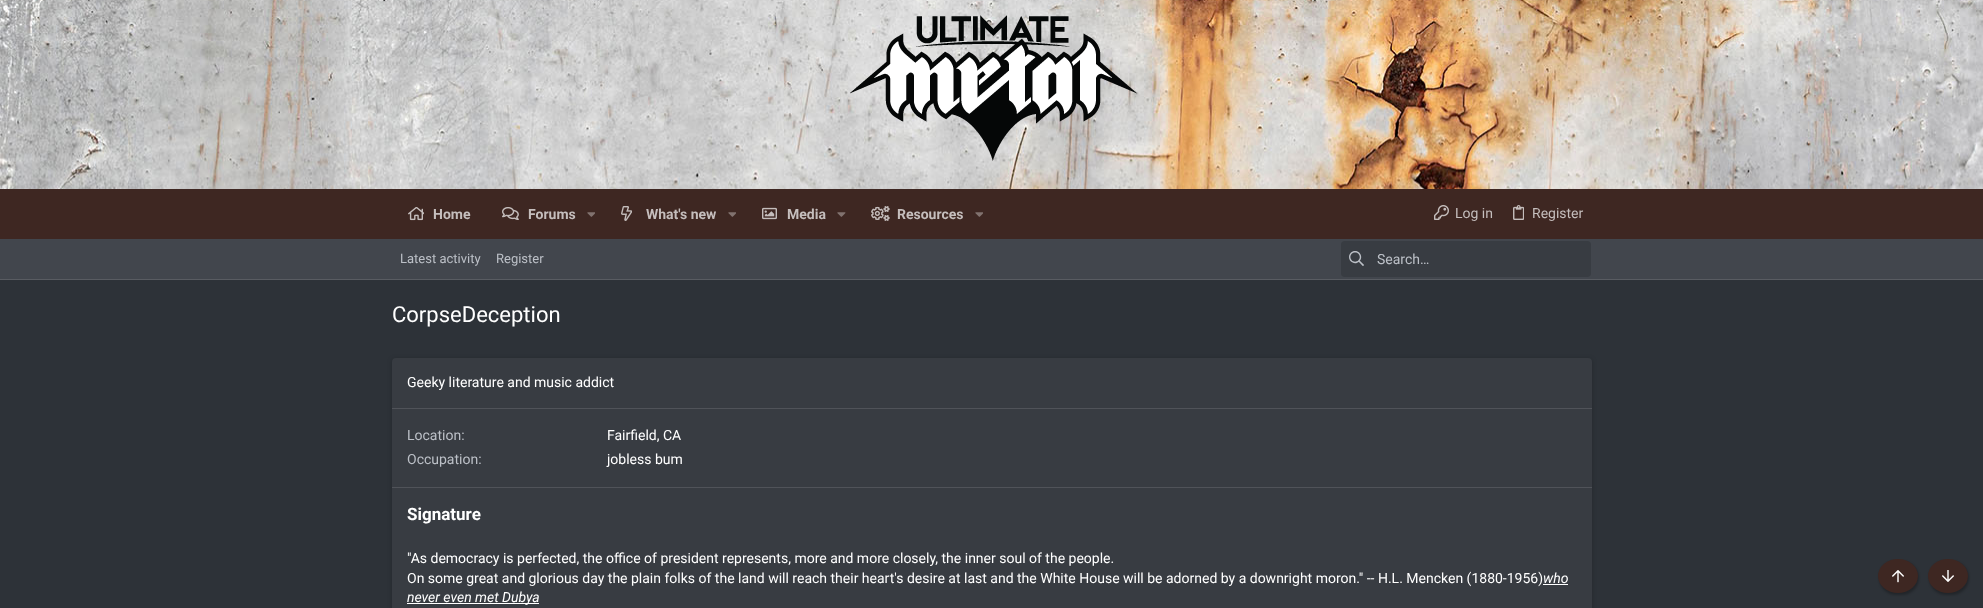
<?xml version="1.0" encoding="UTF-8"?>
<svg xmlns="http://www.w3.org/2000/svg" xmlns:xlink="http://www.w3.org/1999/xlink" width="1983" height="608">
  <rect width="100%" height="100%" fill="#2d3238" />
  <image x="0" y="0" width="1983" height="189" xlink:href="image1.png" />
  <image x="850" y="15" width="287" height="146" xlink:href="image2.png" />
  <rect y="189" width="1983" height="50" fill="#3e2722" />
  <image x="408" y="207" width="16" height="14" xlink:href="image3.png" />
  <image x="502" y="207" width="17" height="13" xlink:href="image4.png" />
  <image x="587" y="212" width="8" height="5" xlink:href="image5.png" />
  <image x="621" y="206" width="11" height="15" xlink:href="image6.png" />
  <image x="728" y="212" width="8" height="5" xlink:href="image5.png" />
  <image x="762" y="207" width="15" height="13" xlink:href="image7.png" />
  <image x="837" y="212" width="9" height="5" xlink:href="image8.png" />
  <image x="871" y="206" width="19" height="15" xlink:href="image9.png" />
  <image x="975" y="212" width="8" height="5" xlink:href="image5.png" />
  <image x="1434" y="205" width="15" height="15" xlink:href="image10.png" />
  <image x="1513" y="205" width="11" height="15" xlink:href="image11.png" />
  <rect y="239" width="1983" height="40" fill="#42464d" />
  <rect y="279" width="1983" height="1" fill="#595c62" />
  <rect x="1341" y="241" width="250" height="36" rx="4" fill="#383c42" />
  <image x="1349" y="251" width="15" height="15" xlink:href="image12.png" />
  <rect x="392" y="359" width="1200" height="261" rx="4" fill="#000000" fill-opacity="0.2" filter="blur(2.5px)" />
  <rect x="392" y="358" width="1200" height="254" rx="4" fill="#383c42" />
  <rect x="392" y="408" width="1200" height="1" fill="#505359" />
  <rect x="392" y="487" width="1200" height="1" fill="#505359" />
  <rect x="1543" y="584" width="25" height="1" fill="#ffffff" />
  <rect x="407" y="603" width="132" height="1" fill="#ffffff" />
  <rect x="1879" y="561" width="40" height="34" rx="17" fill="#000000" fill-opacity="0.25" filter="blur(1px)" />
  <ellipse cx="1898" cy="576" rx="20" ry="17" fill="#3e2722" />
  <image x="1892" y="570" width="12" height="13" xlink:href="image13.png" />
  <rect x="1929" y="561" width="40" height="34" rx="17" fill="#000000" fill-opacity="0.25" filter="blur(1px)" />
  <ellipse cx="1948" cy="576" rx="20" ry="17" fill="#3e2722" />
  <image x="1942" y="570" width="12" height="12" xlink:href="image14.png" />
  <text x="433" y="219" style="font-family: Roboto; font-size: 14px; font-weight: bold; fill: #c5bebd">Home</text>
  <text x="528" y="219" style="font-family: Roboto; font-size: 14px; font-weight: bold; fill: #c5bebd">Forums</text>
  <text x="646" y="219" style="font-family: Roboto; font-size: 14px; font-weight: bold; fill: #c5bebd">What's new</text>
  <text x="787" y="219" style="font-family: Roboto; font-size: 14px; font-weight: bold; fill: #c5bebd">Media</text>
  <text x="897" y="219" style="font-family: Roboto; font-size: 14px; font-weight: bold; fill: #c5bebd">Resources</text>
  <text x="1455" y="218" style="font-family: Roboto; font-size: 14px; fill: #c5bebd">Log in</text>
  <text x="1532" y="218" style="font-family: Roboto; font-size: 14px; fill: #c5bebd">Register</text>
  <text x="400" y="263" style="font-family: Roboto; font-size: 13px; fill: #bcc0c7">Latest activity</text>
  <text x="496" y="263" style="font-family: Roboto; font-size: 13px; fill: #bcc0c7">Register</text>
  <text x="1377" y="264" style="font-family: Roboto; font-size: 14px; fill: #bcc0c7">Search…</text>
  <text x="392" y="322" style="font-family: Roboto; font-size: 22px; fill: #ffffff">CorpseDeception</text>
  <text x="407" y="387" style="font-family: Roboto; font-size: 14px; fill: #ffffff">Geeky literature and music addict</text>
  <text x="407" y="440" style="font-family: Roboto; font-size: 14px; fill: #bcc0c7">Location:</text>
  <text x="607" y="440" style="font-family: Roboto; font-size: 14px; fill: #ffffff">Fairfield, CA</text>
  <text x="407" y="464" style="font-family: Roboto; font-size: 14px; fill: #bcc0c7">Occupation:</text>
  <text x="607" y="464" style="font-family: Roboto; font-size: 14px; fill: #ffffff">jobless bum</text>
  <text x="407" y="520" style="font-family: Roboto; font-size: 17px; font-weight: bold; fill: #ffffff">Signature</text>
  <text x="407" y="563" style="font-family: Roboto; font-size: 14px; fill: #ffffff">"As democracy is perfected, the office of president represents, more and more closely, the inner soul of the people.</text>
  <text x="407" y="583" style="font-family: Roboto; font-size: 14px; fill: #ffffff">On some great and glorious day the plain folks of the land will reach their heart's desire at last and the White House will be adorned by a downright moron." -- H.L. Mencken (1880-1956)</text>
  <text x="1543" y="583" style="font-family: Roboto; font-size: 14px; font-style: italic; fill: #ffffff">who</text>
  <text x="407" y="602" style="font-family: Roboto; font-size: 14px; font-style: italic; fill: #ffffff">never even met Dubya</text>
</svg>
